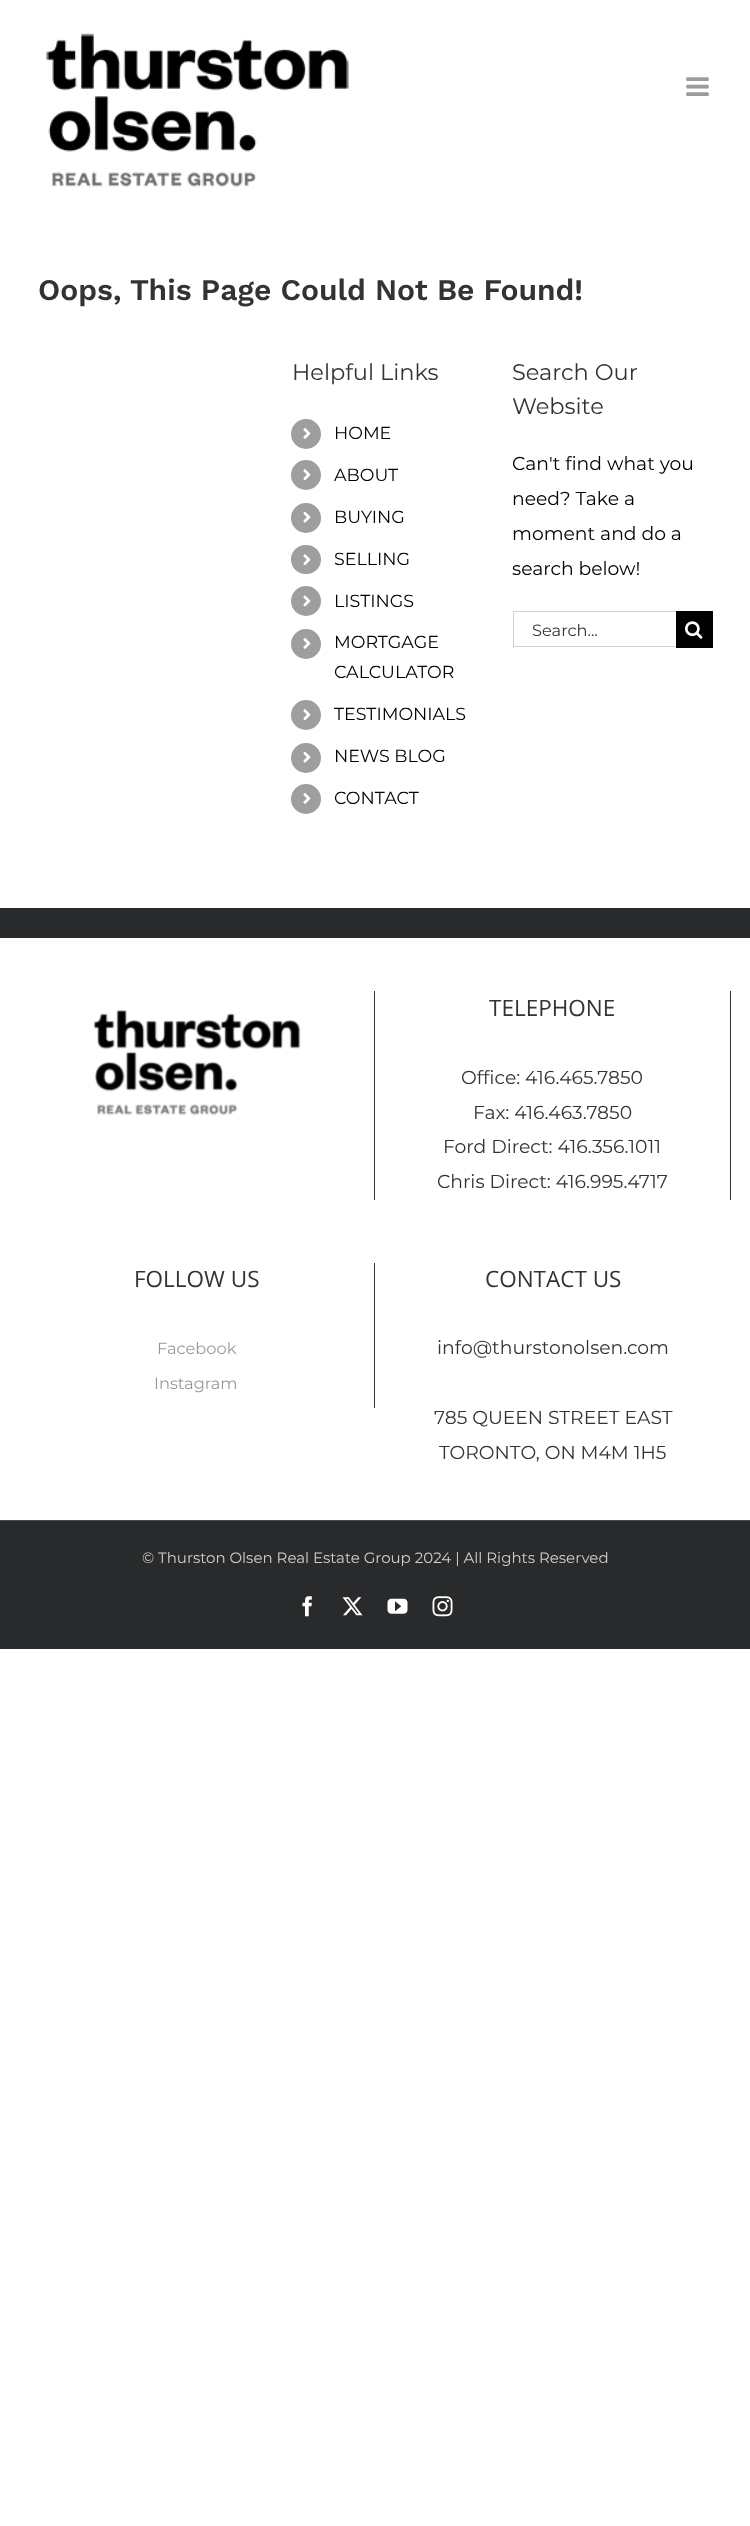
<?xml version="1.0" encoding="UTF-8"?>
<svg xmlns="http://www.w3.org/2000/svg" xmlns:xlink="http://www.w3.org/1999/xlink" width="750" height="2526">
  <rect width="100%" height="100%" fill="#ffffff" />
  <image x="46" y="33" width="303" height="154" xlink:href="image1.png" />
  <image x="686" y="77" width="23" height="19" xlink:href="image2.png" />
  <circle cx="306" cy="434" r="15" fill="#9e9e9e" />
  <image x="303" y="428" width="8" height="11" xlink:href="image3.png" />
  <circle cx="306" cy="475" r="15" fill="#9e9e9e" />
  <image x="303" y="469" width="8" height="11" xlink:href="image4.png" />
  <circle cx="306" cy="518" r="15" fill="#9e9e9e" />
  <image x="303" y="511" width="8" height="12" xlink:href="image5.png" />
  <rect x="291" y="545" width="30" height="29" rx="14.5" fill="#9e9e9e" />
  <image x="303" y="554" width="8" height="11" xlink:href="image4.png" />
  <circle cx="306" cy="601" r="15" fill="#9e9e9e" />
  <image x="303" y="595" width="8" height="12" xlink:href="image6.png" />
  <circle cx="306" cy="644" r="15" fill="#9e9e9e" />
  <image x="303" y="638" width="8" height="11" xlink:href="image3.png" />
  <circle cx="306" cy="715" r="15" fill="#9e9e9e" />
  <image x="303" y="709" width="8" height="11" xlink:href="image4.png" />
  <circle cx="306" cy="758" r="15" fill="#9e9e9e" />
  <image x="303" y="751" width="8" height="12" xlink:href="image5.png" />
  <circle cx="306" cy="799" r="15" fill="#9e9e9e" />
  <image x="303" y="793" width="8" height="11" xlink:href="image3.png" />
  <rect x="513" y="611" width="163" height="1" fill="#d2d2d2" />
  <rect x="513" y="646" width="163" height="1" fill="#d2d2d2" />
  <rect x="513" y="611" width="1" height="37" fill="#d2d2d2" />
  <rect x="676" y="611" width="37" height="37" fill="#000000" />
  <image x="685" y="621" width="18" height="18" xlink:href="image7.png" />
  <rect y="908" width="750" height="30" fill="#282a2b" />
  <rect x="374" y="991" width="1" height="209" fill="#333333" />
  <image x="93" y="1010" width="208" height="106" xlink:href="image8.png" />
  <rect x="730" y="991" width="1" height="209" fill="#333333" />
  <rect x="374" y="1263" width="1" height="145" fill="#333333" />
  <rect y="1521" width="750" height="128" fill="#282a2b" />
  <rect y="1520" width="750" height="1" fill="#4b4c4d" />
  <image x="302" y="1596" width="10" height="21" xlink:href="image9.png" />
  <image x="342" y="1597" width="21" height="19" xlink:href="image10.png" />
  <image x="387" y="1598" width="21" height="16" xlink:href="image11.png" />
  <image x="432" y="1596" width="21" height="21" xlink:href="image12.png" />
  <text x="38" y="300" style="font-family: Work Sans; font-size: 30px; font-weight: 600; fill: #333333">Oops, This Page Could Not Be Found!</text>
  <text x="292" y="380" style="font-family: Montserrat; font-size: 22.5px; fill: #333333">Helpful Links</text>
  <text x="334" y="439" style="font-family: Montserrat; font-size: 17.5px; fill: #000000">HOME</text>
  <text x="334" y="481" style="font-family: Montserrat; font-size: 17.5px; fill: #000000">ABOUT</text>
  <text x="334" y="523" style="font-family: Montserrat; font-size: 17.5px; fill: #000000">BUYING</text>
  <text x="334" y="565" style="font-family: Montserrat; font-size: 17.5px; fill: #000000">SELLING</text>
  <text x="334" y="607" style="font-family: Montserrat; font-size: 17.5px; fill: #000000">LISTINGS</text>
  <text x="334" y="648" style="font-family: Montserrat; font-size: 17.5px; fill: #000000">MORTGAGE</text>
  <text x="334" y="678" style="font-family: Montserrat; font-size: 17.5px; fill: #000000">CALCULATOR</text>
  <text x="334" y="720" style="font-family: Montserrat; font-size: 17.5px; fill: #000000">TESTIMONIALS</text>
  <text x="334" y="762" style="font-family: Montserrat; font-size: 17.5px; fill: #000000">NEWS BLOG</text>
  <text x="334" y="804" style="font-family: Montserrat; font-size: 17.5px; fill: #000000">CONTACT</text>
  <text x="512" y="380" style="font-family: Montserrat; font-size: 22.5px; fill: #333333">Search Our</text>
  <text x="512" y="414" style="font-family: Montserrat; font-size: 22.5px; fill: #333333">Website</text>
  <text x="512" y="470" style="font-family: Montserrat; font-size: 18.75px; fill: #000000">Can't find what you</text>
  <text x="512" y="505" style="font-family: Montserrat; font-size: 18.75px; fill: #000000">need? Take a</text>
  <text x="512" y="540" style="font-family: Montserrat; font-size: 18.75px; fill: #000000">moment and do a</text>
  <text x="512" y="575" style="font-family: Montserrat; font-size: 18.75px; fill: #000000">search below!</text>
  <text x="532" y="636" style="font-family: Montserrat; font-size: 16.25px; fill: #333333">Search...</text>
  <text x="489" y="1016" style="font-family: Open Sans; font-size: 22.5px; fill: #333333">TELEPHONE</text>
  <text x="461" y="1084" style="font-family: Montserrat; font-size: 18.75px; fill: #333333">Office: 416.465.7850</text>
  <text x="473" y="1119" style="font-family: Montserrat; font-size: 18.75px; fill: #333333">Fax: 416.463.7850</text>
  <text x="443" y="1153" style="font-family: Montserrat; font-size: 18.75px; fill: #333333">Ford Direct: 416.356.1011</text>
  <text x="437" y="1188" style="font-family: Montserrat; font-size: 18.75px; fill: #333333">Chris Direct: 416.995.4717</text>
  <text x="134" y="1287" style="font-family: Open Sans; font-size: 22.5px; fill: #333333">FOLLOW US</text>
  <text x="157" y="1354" style="font-family: Montserrat; font-size: 16.25px; fill: #999999">Facebook</text>
  <text x="154" y="1389" style="font-family: Montserrat; font-size: 16.25px; fill: #999999">Instagram</text>
  <text x="485" y="1287" style="font-family: Open Sans; font-size: 22.5px; fill: #333333">CONTACT US</text>
  <text x="437" y="1354" style="font-family: Montserrat; font-size: 18.75px; fill: #333333">info@thurstonolsen.com</text>
  <text x="434" y="1424" style="font-family: Montserrat; font-size: 18.75px; fill: #333333">785 QUEEN STREET EAST</text>
  <text x="439" y="1459" style="font-family: Montserrat; font-size: 18.75px; fill: #333333">TORONTO, ON M4M 1H5</text>
  <text x="142" y="1563" style="font-family: Montserrat; font-size: 15px; fill: #d3cdcd">© Thurston Olsen Real Estate Group 2024 | All Rights Reserved</text>
</svg>
